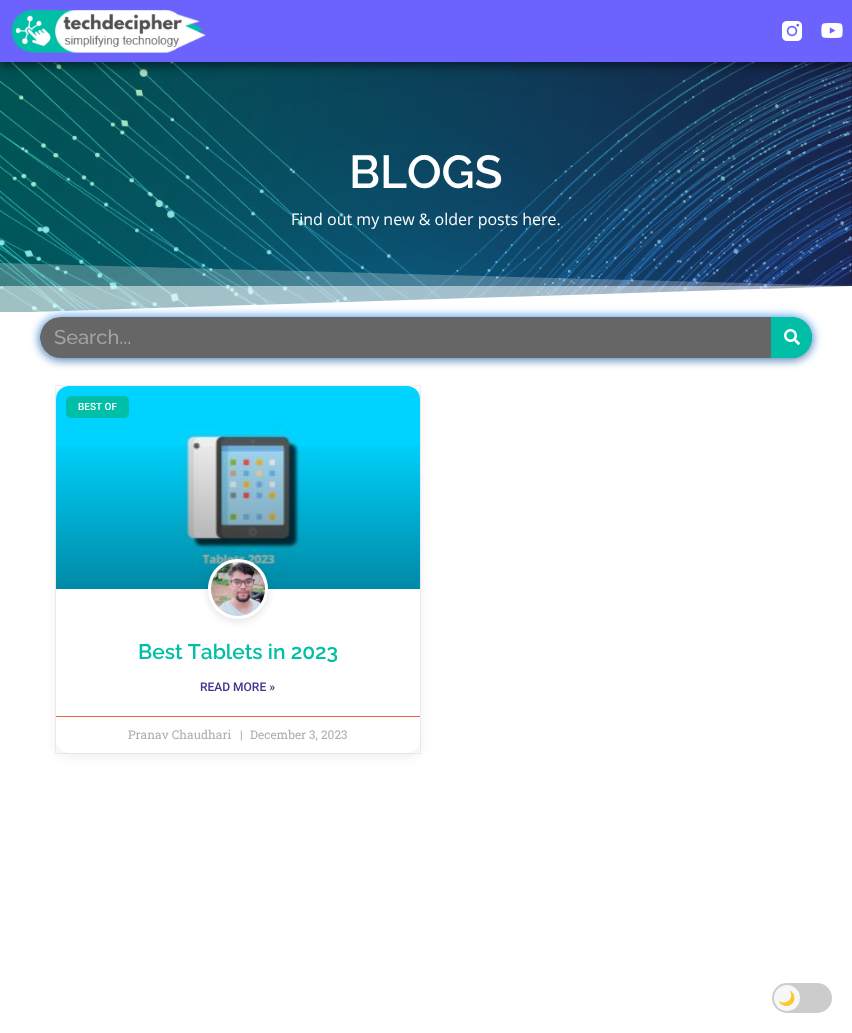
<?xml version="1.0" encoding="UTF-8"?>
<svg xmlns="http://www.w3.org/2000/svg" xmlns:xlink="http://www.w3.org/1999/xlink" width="852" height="1033">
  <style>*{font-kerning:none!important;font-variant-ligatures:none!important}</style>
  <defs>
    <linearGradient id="g1" gradientUnits="userSpaceOnUse" x1="0" y1="187" x2="852" y2="187"><stop offset="0" stop-color="#00bfa6" /><stop offset="1" stop-color="#44328d" /></linearGradient>
    <clipPath id="clip1"><rect y="263" width="852" height="49" /></clipPath>
    <clipPath id="clip2"><path d="M 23 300 h 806 v 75 h -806 z m 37.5 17 h 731 c 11.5 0 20.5 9 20.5 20.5 c 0 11.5 -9 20.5 -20.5 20.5 h -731 c -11.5 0 -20.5 -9 -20.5 -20.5 c 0 -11.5 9 -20.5 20.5 -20.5 z" clip-rule="evenodd" /></clipPath>
    <clipPath id="clip3"><path d="M 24 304 h 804 v 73 h -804 z m 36.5 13 h 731 c 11.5 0 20.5 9 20.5 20.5 c 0 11.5 -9 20.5 -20.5 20.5 h -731 c -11.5 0 -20.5 -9 -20.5 -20.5 c 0 -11.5 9 -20.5 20.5 -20.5 z" clip-rule="evenodd" /></clipPath>
    <linearGradient id="g2" gradientUnits="userSpaceOnUse" x1="238" y1="589" x2="238" y2="386"><stop offset="0" stop-color="#000000" stop-opacity="0.35" /><stop offset="0.75" stop-color="#000000" stop-opacity="0" /></linearGradient>
  </defs>
  <rect width="100%" height="100%" fill="#ffffff" />
  <rect y="62" width="852" height="250" fill="url(#g1)" />
  <image x="0" y="62" width="852" height="250" xlink:href="image4.png" />
  <rect y="4" width="852" height="62" fill="#000000" fill-opacity="0.5" filter="blur(5px)" />
  <rect width="852" height="62" fill="#6c63ff" />
  <image x="11" y="9" width="195" height="44" xlink:href="image1.png" />
  <image x="782" y="21" width="20" height="20" xlink:href="image2.png" />
  <image x="821" y="23" width="22" height="15" xlink:href="image3.png" />
  <g clip-path="url(#clip1)">
    <path d="M -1 313 h 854 v -27 z" fill="#ffffff" />
  </g>
  <rect y="286" width="852" height="26" fill="#ffffff" fill-opacity="0.5" />
  <g clip-path="url(#clip1)">
    <path d="M 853 313 h -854 v -50 l 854 23 z" fill="#ffffff" fill-opacity="0.25" />
  </g>
  <g clip-path="url(#clip2)">
    <rect x="39" y="316" width="774" height="43" rx="21.5" fill="#007bff" fill-opacity="0.6" filter="blur(5px)" />
  </g>
  <g clip-path="url(#clip3)">
    <rect x="40" y="320" width="772" height="41" rx="20.5" fill="#000000" fill-opacity="0.25" filter="blur(5px)" />
  </g>
  <rect x="40" y="317" width="772" height="41" rx="20.5" fill="#000000" fill-opacity="0.6" />
  <path d="M 771 317 h 20.5 c 11.5 0 20.5 9 20.5 20.5 c 0 11.5 -9 20.5 -20.5 20.5 h -20.5 z" fill="#00bfa6" />
  <image x="784" y="329" width="16" height="16" xlink:href="image5.png" />
  <rect x="55" y="389" width="366" height="369" rx="14" fill="#000000" fill-opacity="0.06" filter="blur(6px)" />
  <rect x="55.5" y="385.5" width="365" height="368" fill="none" stroke="#000000" stroke-opacity="0.06" />
  <rect x="56" y="386" width="364" height="367" rx="13" fill="#ffffff" />
  <image x="56" y="386" width="364" height="203" xlink:href="image6.png" />
  <rect x="56" y="446" width="364" height="143" fill="url(#g2)" />
  <rect x="66" y="396" width="63" height="22" rx="5" fill="#00bfa6" />
  <rect x="208" y="561" width="60" height="60" rx="30" fill="#000000" fill-opacity="0.12" filter="blur(4px)" />
  <path d="M 238 559 c 17 0 30 13 30 30 c 0 17 -13 30 -30 30 c -17 0 -30 -13 -30 -30 c 0 -17 13 -30 30 -30 z" fill="#ffffff" />
  <image x="211" y="562" width="54" height="54" xlink:href="image7.png" />
  <rect x="56" y="716" width="364" height="1" fill="#ef5f4b" />
  <rect x="772" y="983" width="60" height="30" rx="15" fill="#cccccc" />
  <circle cx="787" cy="998" r="13" fill="#f7f7f7" />
  <text x="349" y="188" style="font-family: Raleway; font-size: 46px; font-weight: 600; fill: #ffffff">BLOGS</text>
  <text x="291" y="225" style="font-family: Open Sans; font-size: 16px; fill: #ffffff">Find out my new &amp; older posts here.</text>
  <text x="54" y="344" style="font-family: Raleway; font-size: 20px; font-weight: 500; fill: #a3a3a3">Search...</text>
  <text x="78" y="410" style="font-family: Roboto; font-size: 10px; font-weight: 500; fill: #ffffff">BEST OF</text>
  <text x="138" y="659" style="font-family: Raleway; font-size: 21px; font-weight: 600; fill: #00bfa6">Best Tablets in 2023</text>
  <text x="200" y="691" style="font-family: Roboto; font-size: 12px; font-weight: 500; fill: #44328d">READ MORE »</text>
  <text x="128" y="739" style="font-family: Roboto Slab; font-size: 12px; fill: #adadad">Pranav Chaudhari</text>
  <text x="240" y="739" style="font-family: Roboto Slab; font-size: 12px; fill: #adadad">|</text>
  <text x="250" y="739" style="font-family: Roboto Slab; font-size: 12px; fill: #adadad">December 3, 2023</text>
  <text x="778" y="1003" style="font-family: Noto Color Emoji; font-size: 14px; fill: #333333">🌙</text>
</svg>
